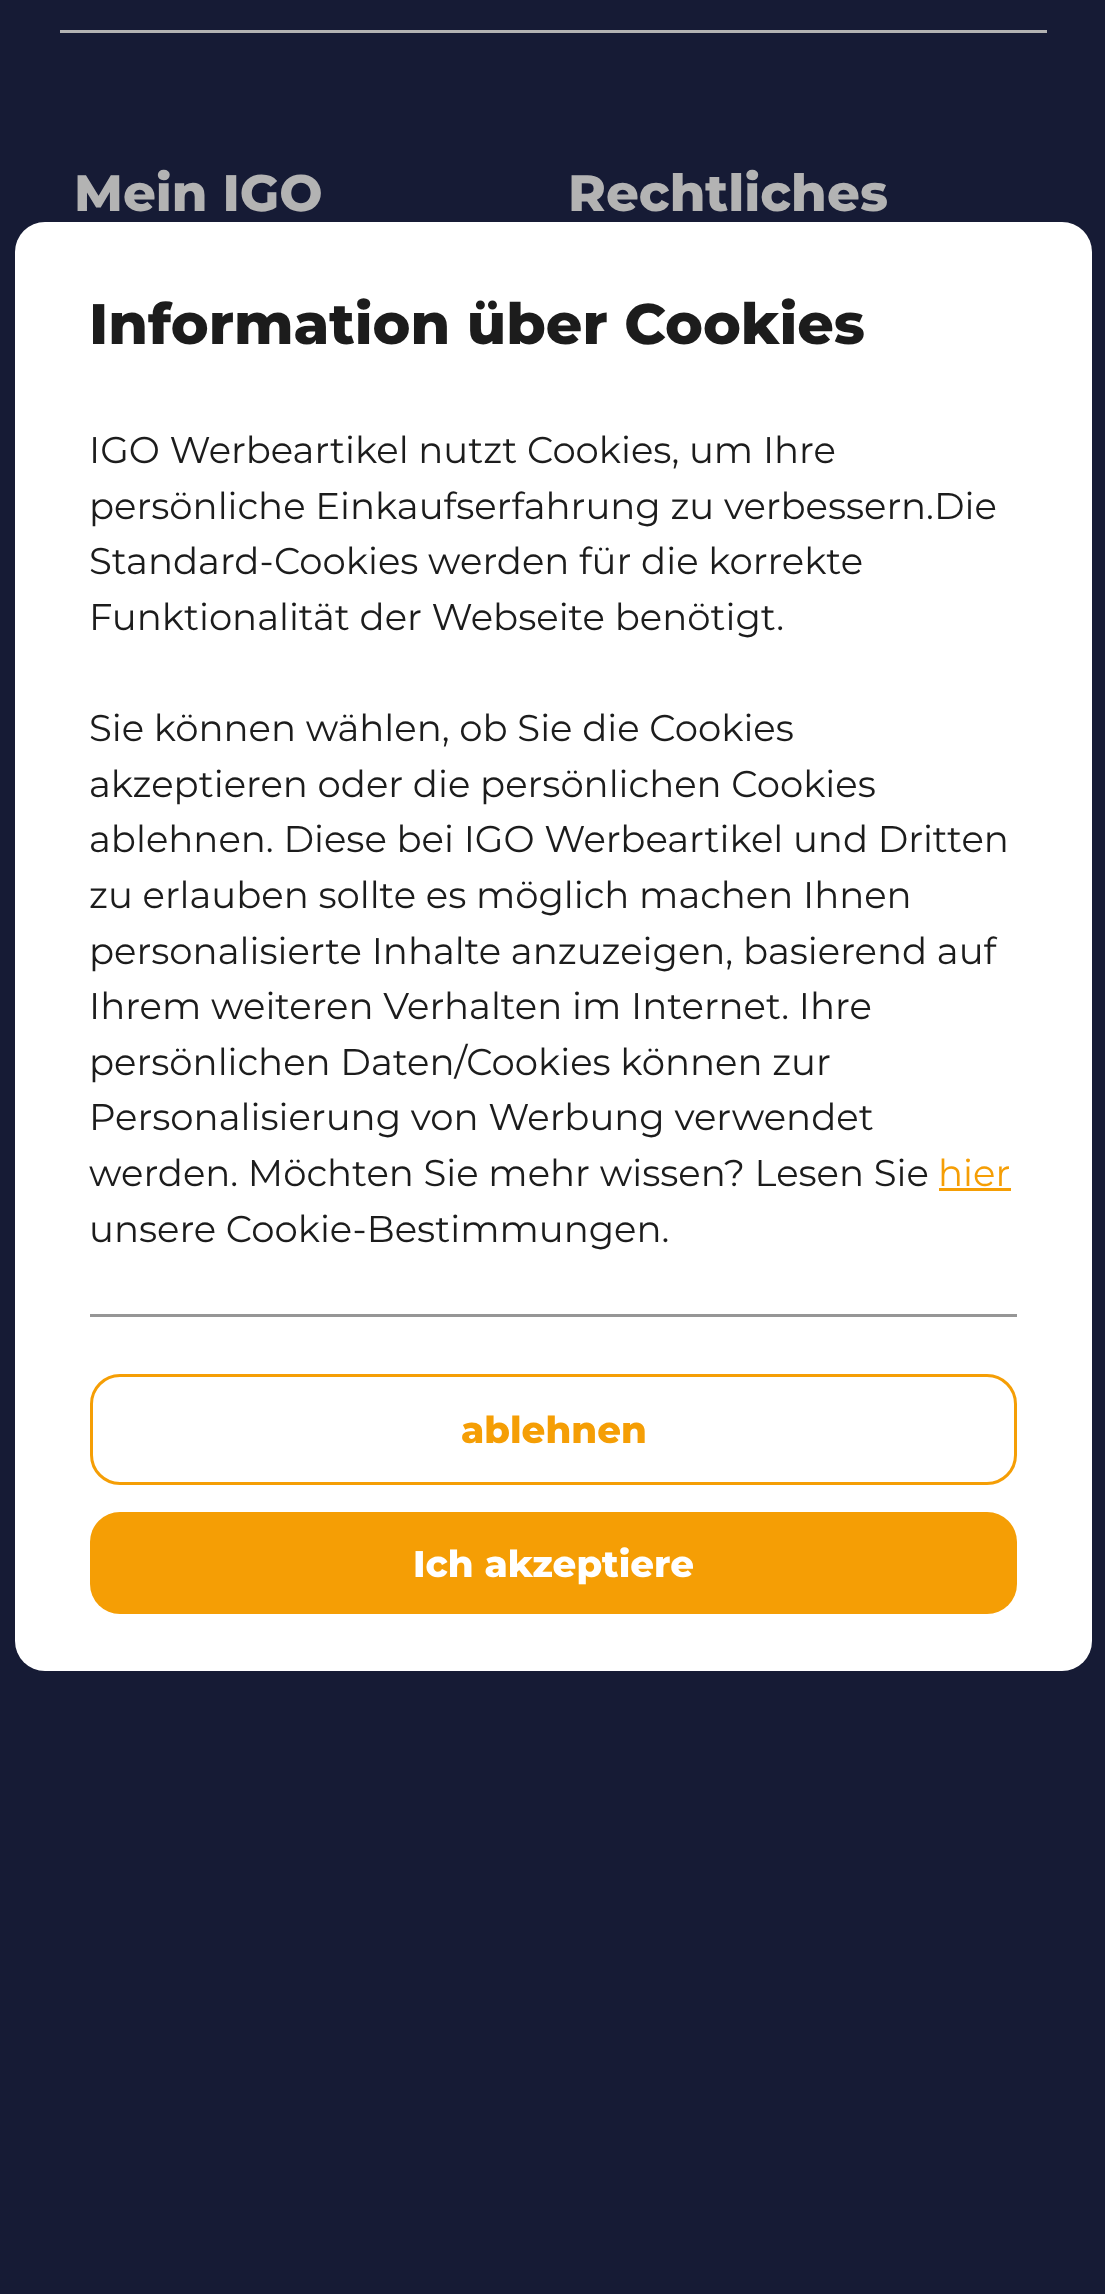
<?xml version="1.0" encoding="UTF-8"?>
<svg xmlns="http://www.w3.org/2000/svg" xmlns:xlink="http://www.w3.org/1999/xlink" width="1105" height="2294">
  <rect width="100%" height="100%" fill="#161b35" />
  <rect x="60" y="30" width="987" height="3" fill="#b3b3b3" />
  <rect x="15" y="222" width="1077" height="1449" rx="30" fill="#ffffff" />
  <rect x="90" y="1314" width="927" height="3" fill="#969696" />
  <rect x="939" y="1188" width="72" height="3" fill="#f59e05" />
  <rect x="91.5" y="1375.5" width="924" height="108" rx="28.5" fill="none" stroke="#f59e05" stroke-width="3" />
  <rect x="90" y="1512" width="927" height="102" rx="30" fill="#f59e05" />
  <text x="74" y="211" style="font-family: Montserrat; font-size: 51.25px; font-weight: 800; fill: #b3b3b3">Mein IGO</text>
  <text x="568" y="211" style="font-family: Montserrat; font-size: 51.25px; font-weight: 800; fill: #b3b3b3">Rechtliches</text>
  <text x="89" y="344" style="font-family: Montserrat; font-size: 57px; font-weight: 800; fill: #1c1c1c">Information über Cookies</text>
  <text x="89" y="463" style="font-family: Montserrat; font-size: 37.05px; fill: #1c1c1c">IGO Werbeartikel nutzt Cookies, um Ihre</text>
  <text x="89" y="519" style="font-family: Montserrat; font-size: 37.05px; fill: #1c1c1c">persönliche Einkaufserfahrung zu verbessern.Die</text>
  <text x="89" y="574" style="font-family: Montserrat; font-size: 37.05px; fill: #1c1c1c">Standard-Cookies werden für die korrekte</text>
  <text x="89" y="630" style="font-family: Montserrat; font-size: 37.05px; fill: #1c1c1c">Funktionalität der Webseite benötigt.</text>
  <text x="89" y="741" style="font-family: Montserrat; font-size: 37.05px; fill: #1c1c1c">Sie können wählen, ob Sie die Cookies</text>
  <text x="89" y="797" style="font-family: Montserrat; font-size: 37.05px; fill: #1c1c1c">akzeptieren oder die persönlichen Cookies</text>
  <text x="89" y="852" style="font-family: Montserrat; font-size: 37.05px; fill: #1c1c1c">ablehnen. Diese bei IGO Werbeartikel und Dritten</text>
  <text x="89" y="908" style="font-family: Montserrat; font-size: 37.05px; fill: #1c1c1c">zu erlauben sollte es möglich machen Ihnen</text>
  <text x="89" y="964" style="font-family: Montserrat; font-size: 37.05px; fill: #1c1c1c">personalisierte Inhalte anzuzeigen, basierend auf</text>
  <text x="89" y="1019" style="font-family: Montserrat; font-size: 37.05px; fill: #1c1c1c">Ihrem weiteren Verhalten im Internet. Ihre</text>
  <text x="89" y="1075" style="font-family: Montserrat; font-size: 37.05px; fill: #1c1c1c">persönlichen Daten/Cookies können zur</text>
  <text x="89" y="1130" style="font-family: Montserrat; font-size: 37.05px; fill: #1c1c1c">Personalisierung von Werbung verwendet</text>
  <text x="89" y="1186" style="font-family: Montserrat; font-size: 37.05px; fill: #1c1c1c">werden. Möchten Sie mehr wissen? Lesen Sie</text>
  <text x="938" y="1186" style="font-family: Montserrat; font-size: 37.05px; fill: #f59e05">hier</text>
  <text x="89" y="1242" style="font-family: Montserrat; font-size: 37.05px; fill: #1c1c1c">unsere Cookie-Bestimmungen.</text>
  <text x="461" y="1443" style="font-family: Montserrat; font-size: 37.05px; font-weight: 800; fill: #f59e05">ablehnen</text>
  <text x="413" y="1577" style="font-family: Montserrat; font-size: 37.05px; font-weight: 800; fill: #ffffff">Ich akzeptiere</text>
</svg>
